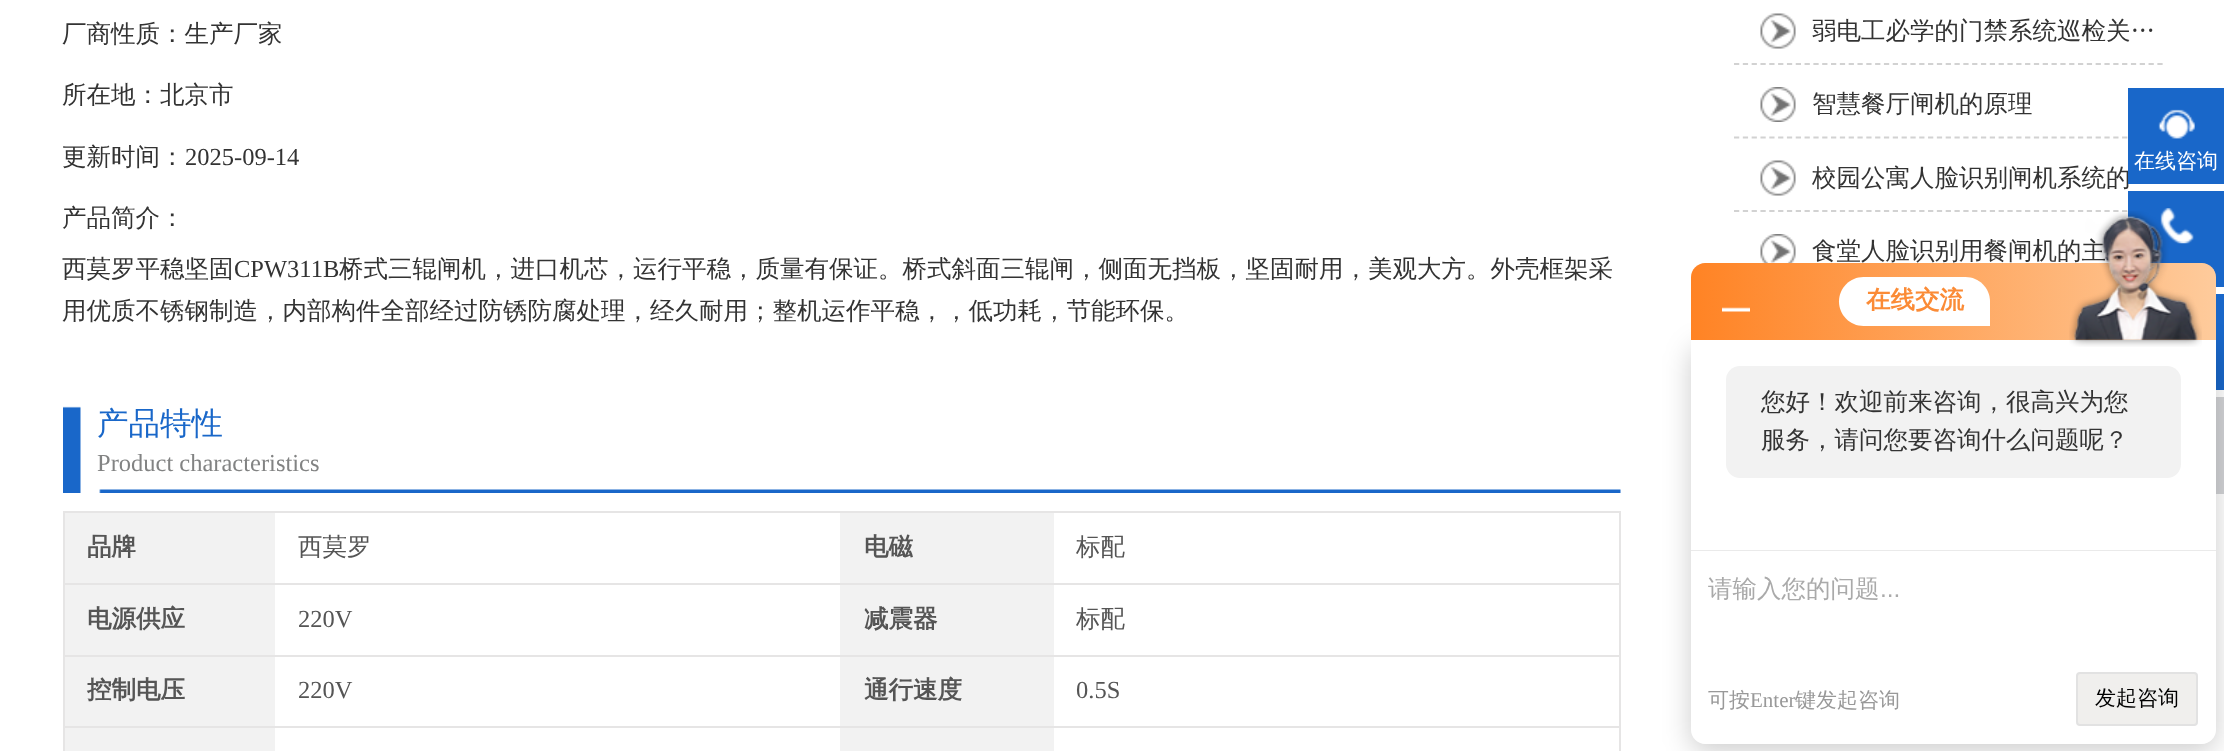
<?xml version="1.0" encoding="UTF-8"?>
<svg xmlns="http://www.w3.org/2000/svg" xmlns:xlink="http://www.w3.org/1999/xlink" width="2224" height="751">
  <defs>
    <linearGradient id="g1" gradientUnits="userSpaceOnUse" x1="1691" y1="301" x2="2216" y2="301"><stop offset="0" stop-color="#ff8324" /><stop offset="1" stop-color="#fecb9c" /></linearGradient>
  </defs>
  <rect width="100%" height="100%" fill="#ffffff" />
  <image x="63" y="406" width="1558" height="87" xlink:href="image1.png" />
  <rect x="63" y="511" width="1558" height="2" fill="#e6e5e5" />
  <rect x="1619" y="511" width="2" height="240" fill="#e6e5e5" />
  <rect x="63" y="511" width="2" height="240" fill="#e6e5e5" />
  <rect x="65" y="513" width="210" height="70" fill="#f2f2f2" />
  <rect x="840" y="513" width="214" height="70" fill="#f2f2f2" />
  <rect x="63" y="583" width="1558" height="2" fill="#e6e5e5" />
  <rect x="65" y="585" width="210" height="70" fill="#f2f2f2" />
  <rect x="840" y="585" width="214" height="70" fill="#f2f2f2" />
  <rect x="63" y="655" width="1558" height="2" fill="#e6e5e5" />
  <rect x="65" y="657" width="210" height="69" fill="#f2f2f2" />
  <rect x="840" y="657" width="214" height="69" fill="#f2f2f2" />
  <rect x="63" y="726" width="1558" height="2" fill="#e6e5e5" />
  <rect x="65" y="728" width="210" height="23" fill="#f2f2f2" />
  <rect x="840" y="728" width="214" height="23" fill="#f2f2f2" />
  <image x="1760" y="13" width="36" height="36" xlink:href="image2.png" />
  <path d="M 1734 64 h 429" fill="none" stroke="#d2d2d2" stroke-width="1.8" stroke-dasharray="5.25 3.57" />
  <image x="1760" y="87" width="36" height="35" xlink:href="image3.png" />
  <path d="M 1734 137.5 h 429" fill="none" stroke="#d2d2d2" stroke-width="1.8" stroke-dasharray="5.25 3.57" />
  <image x="1760" y="160" width="36" height="36" xlink:href="image2.png" />
  <path d="M 1734 211 h 429" fill="none" stroke="#d2d2d2" stroke-width="1.8" stroke-dasharray="5.25 3.57" />
  <image x="1760" y="234" width="36" height="29" xlink:href="image4.png" />
  <rect x="2128" y="191" width="96" height="96" fill="#1967c9" />
  <image x="2160" y="208" width="34" height="36" xlink:href="image6.png" />
  <rect x="2216" y="294" width="8" height="96" fill="#1967c9" />
  <rect x="2216" y="397" width="8" height="97" fill="#d2d3d6" />
  <rect x="1691" y="347" width="525" height="404" rx="14" fill="#000000" fill-opacity="0.2" filter="blur(14px)" />
  <path d="M 1705 263 h 497 c 7.5 0 14 6.5 14 14 v 63 h -525 v -63 c 0 -7.5 6.5 -14 14 -14 z" fill="url(#g1)" />
  <image x="1722" y="307" width="28" height="5" xlink:href="image7.png" />
  <path d="M 1863.5 277 h 102 c 13.5 0 24.5 11 24.5 24.5 v 24.5 h -126.5 c -13.5 0 -24.5 -11 -24.5 -24.5 c 0 -13.5 11 -24.5 24.5 -24.5 z" fill="#ffffff" />
  <path d="M 1691 340 h 525 v 390 c 0 7.5 -6.5 14 -14 14 h -497 c -7.5 0 -14 -6.5 -14 -14 z" fill="#ffffff" />
  <rect x="1726" y="366" width="455" height="112" rx="14" fill="#f2f2f2" />
  <rect x="1691" y="550" width="525" height="1" fill="#eaeaea" />
  <rect x="2077" y="673" width="120" height="52" rx="3" fill="#f0efed" stroke="#e2e2e2" stroke-width="2" />
  <text x="62" y="42" style="font-family: WenQuanYi Zen Hei; font-size: 24.5px; font-weight: 500; fill: #333333">厂商性质：生产厂家</text>
  <text x="62" y="103" style="font-family: WenQuanYi Zen Hei; font-size: 24.5px; font-weight: 500; fill: #333333">所在地：北京市</text>
  <text x="62" y="165" style="font-family: WenQuanYi Zen Hei; font-size: 24.5px; font-weight: 500; fill: #333333">更新时间：</text>
  <text x="185" y="165" style="font-family: Liberation Serif; font-size: 24.5px; fill: #333333">2025-09-14</text>
  <text x="62" y="226" style="font-family: WenQuanYi Zen Hei; font-size: 24.5px; font-weight: 500; fill: #333333">产品简介：</text>
  <text x="62" y="277" style="font-family: WenQuanYi Zen Hei; font-size: 24.5px; font-weight: 500; fill: #333333">西莫罗平稳坚固</text>
  <text x="234" y="277" style="font-family: Liberation Serif; font-size: 24.5px; fill: #333333">CPW311B</text>
  <text x="339" y="277" style="font-family: WenQuanYi Zen Hei; font-size: 24.5px; font-weight: 500; fill: #333333">桥式三辊闸机，进口机芯，运行平稳，质量有保证。桥式斜面三辊闸，侧面无挡板，坚固耐用，美观大方。外壳框架采</text>
  <text x="62" y="319" style="font-family: WenQuanYi Zen Hei; font-size: 24.5px; font-weight: 500; fill: #333333">用优质不锈钢制造，内部构件全部经过防锈防腐处理，经久耐用；整机运作平稳，，低功耗，节能环保。</text>
  <text x="97" y="434" style="font-family: WenQuanYi Zen Hei; font-size: 31.5px; font-weight: 500; fill: #1967c9">产品特性</text>
  <text x="97" y="471" style="font-family: Liberation Serif; font-size: 24.5px; fill: #828383">Product characteristics</text>
  <text x="87" y="555" style="font-family: WenQuanYi Zen Hei; font-size: 24.5px; font-weight: bold; fill: #555555">品牌</text>
  <text x="298" y="555" style="font-family: WenQuanYi Zen Hei; font-size: 24.5px; font-weight: 500; fill: #555555">西莫罗</text>
  <text x="864" y="555" style="font-family: WenQuanYi Zen Hei; font-size: 24.5px; font-weight: bold; fill: #555555">电磁</text>
  <text x="1076" y="555" style="font-family: WenQuanYi Zen Hei; font-size: 24.5px; font-weight: 500; fill: #555555">标配</text>
  <text x="87" y="627" style="font-family: WenQuanYi Zen Hei; font-size: 24.5px; font-weight: bold; fill: #555555">电源供应</text>
  <text x="298" y="627" style="font-family: Liberation Serif; font-size: 24.5px; fill: #555555">220V</text>
  <text x="864" y="627" style="font-family: WenQuanYi Zen Hei; font-size: 24.5px; font-weight: bold; fill: #555555">减震器</text>
  <text x="1076" y="627" style="font-family: WenQuanYi Zen Hei; font-size: 24.5px; font-weight: 500; fill: #555555">标配</text>
  <text x="87" y="698" style="font-family: WenQuanYi Zen Hei; font-size: 24.5px; font-weight: bold; fill: #555555">控制电压</text>
  <text x="298" y="698" style="font-family: Liberation Serif; font-size: 24.5px; fill: #555555">220V</text>
  <text x="864" y="698" style="font-family: WenQuanYi Zen Hei; font-size: 24.5px; font-weight: bold; fill: #555555">通行速度</text>
  <text x="1076" y="698" style="font-family: Liberation Serif; font-size: 24.5px; fill: #555555">0.5S</text>
  <text x="1812" y="39" style="font-family: WenQuanYi Zen Hei; font-size: 24.5px; font-weight: 500; fill: #333333">弱电工必学的门禁系统巡检关…</text>
  <text x="1812" y="112" style="font-family: WenQuanYi Zen Hei; font-size: 24.5px; font-weight: 500; fill: #333333">智慧餐厅闸机的原理</text>
  <text x="1812" y="186" style="font-family: WenQuanYi Zen Hei; font-size: 24.5px; font-weight: 500; fill: #333333">校园公寓人脸识别闸机系统的</text>
  <text x="1812" y="259" style="font-family: WenQuanYi Zen Hei; font-size: 24.5px; font-weight: 500; fill: #333333">食堂人脸识别用餐闸机的主</text>
  <rect x="2128" y="88" width="96" height="96" fill="#1967c9" />
  <image x="2158" y="109" width="37" height="30" xlink:href="image5.png" />
  <text x="2134" y="168" style="font-family: WenQuanYi Zen Hei; font-size: 21px; font-weight: 500; fill: #ffffff">在线咨询</text>
  <text x="1866" y="308" style="font-family: WenQuanYi Zen Hei; font-size: 24.5px; font-weight: bold; fill: #fb8b36">在线交流</text>
  <image x="2069" y="211" width="133" height="136" xlink:href="image8.png" />
  <text x="1761" y="410" style="font-family: WenQuanYi Zen Hei; font-size: 24.5px; font-weight: 500; fill: #333333">您好！欢迎前来咨询，很高兴为您</text>
  <text x="1761" y="448" style="font-family: WenQuanYi Zen Hei; font-size: 24.5px; font-weight: 500; fill: #333333">服务，请问您要咨询什么问题呢？</text>
  <text x="1708" y="597" style="font-family: WenQuanYi Zen Hei; font-size: 24.5px; font-weight: 500; fill: #aaaaaa">请输入您的问题</text>
  <text x="1880" y="597" style="font-family: Liberation Sans; font-size: 24.5px; fill: #aaaaaa">...</text>
  <text x="1708" y="707" style="font-family: WenQuanYi Zen Hei; font-size: 21px; font-weight: 500; fill: #999999">可按</text>
  <text x="1750" y="707" style="font-family: Liberation Serif; font-size: 21px; fill: #999999">Enter</text>
  <text x="1795" y="707" style="font-family: WenQuanYi Zen Hei; font-size: 21px; font-weight: 500; fill: #999999">键发起咨询</text>
  <text x="2095" y="705" style="font-family: WenQuanYi Zen Hei; font-size: 21px; font-weight: 500; fill: #000000">发起咨询</text>
</svg>
